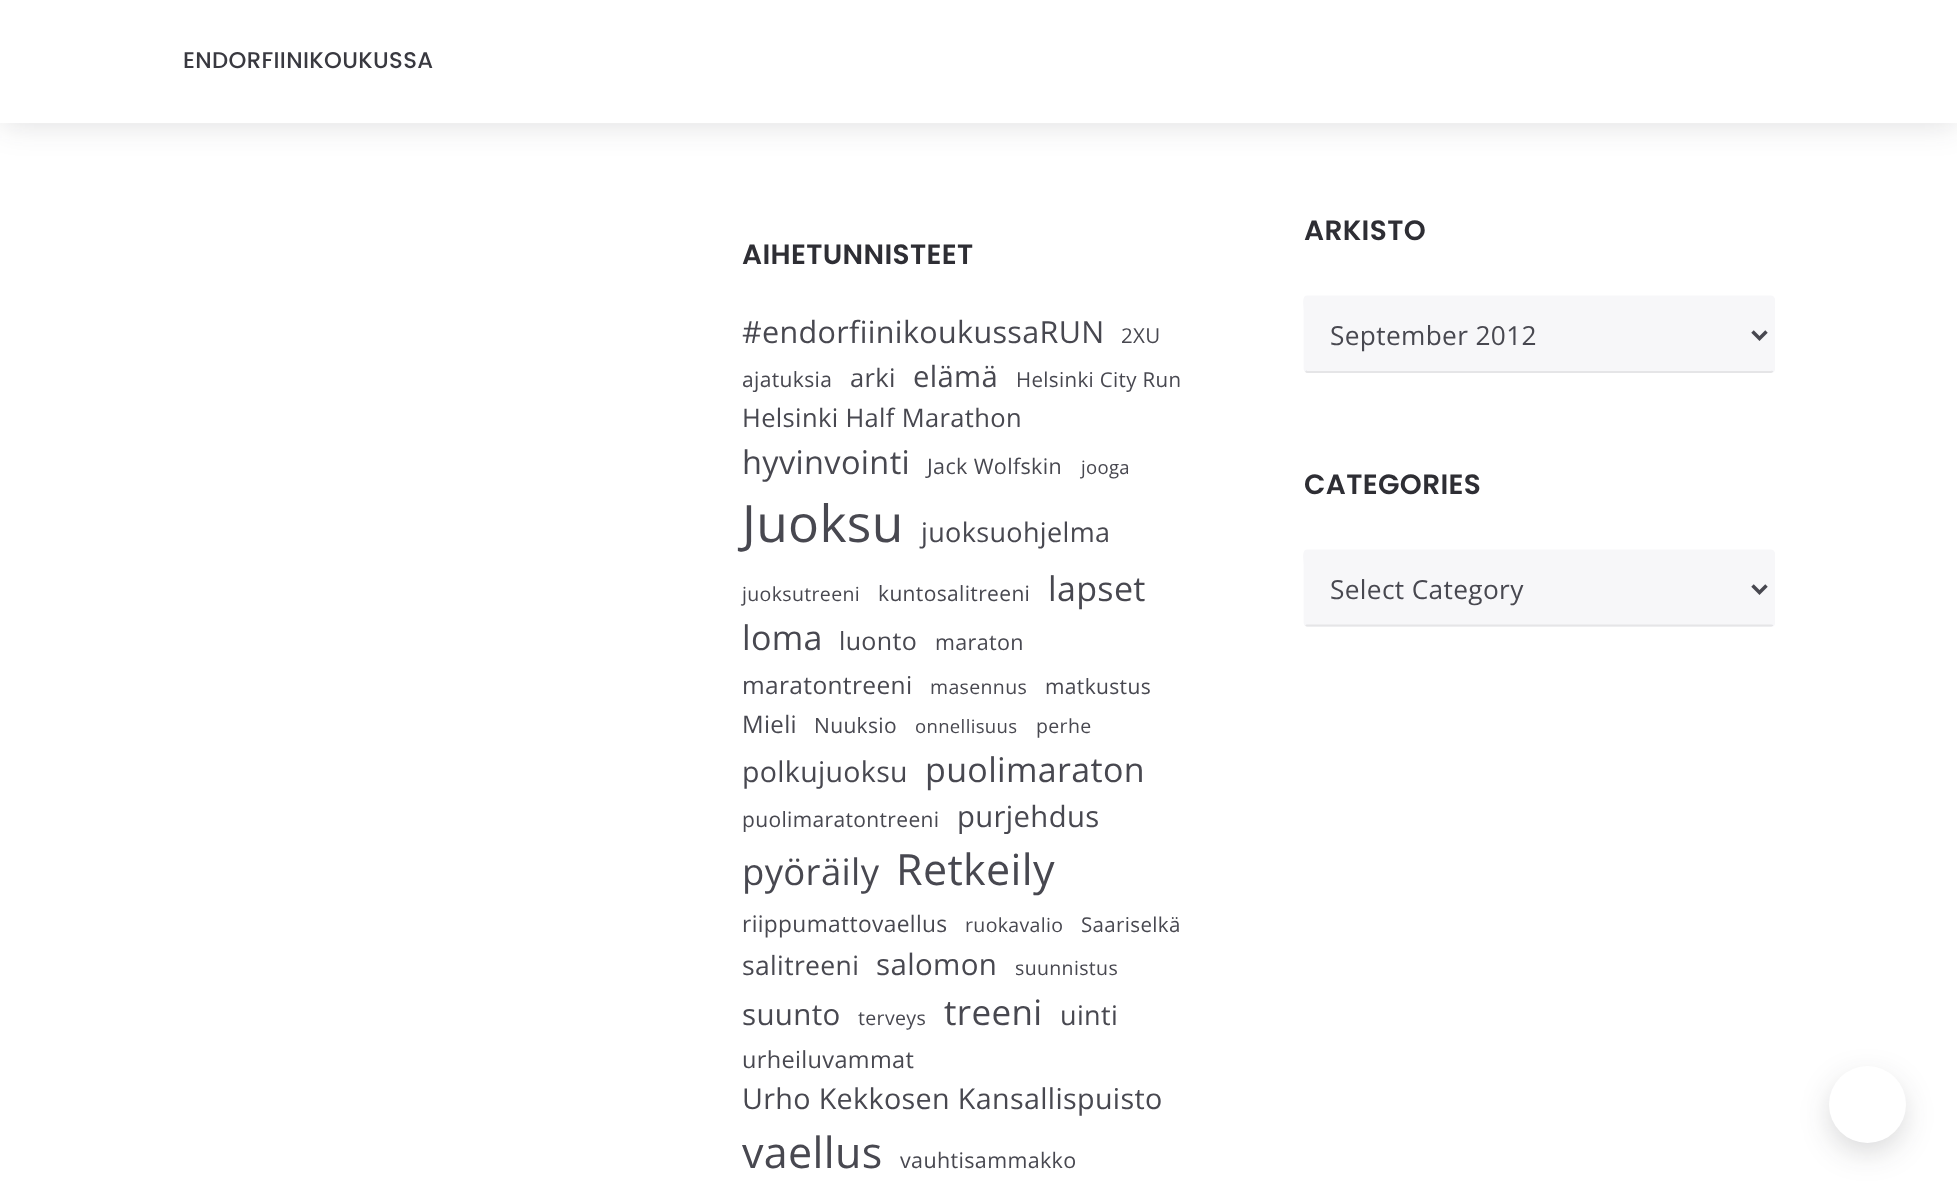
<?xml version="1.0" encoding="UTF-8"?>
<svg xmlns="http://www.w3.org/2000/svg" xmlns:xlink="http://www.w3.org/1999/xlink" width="1957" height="1195">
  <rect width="100%" height="100%" fill="#ffffff" />
  <rect x="2" y="5" width="1955" height="119" fill="#202025" fill-opacity="0.15" filter="blur(16px)" />
  <rect width="1957" height="123" fill="#ffffff" />
  <rect x="1304" y="296" width="471" height="77" rx="4" fill="#f7f7f9" />
  <path d="M 1773 371 l -2 1 h -464 l -1.5 -1" fill="none" stroke="#e5e5e7" stroke-width="1.8" />
  <path d="M 1305.5 371 l -1 -2 v -58 c 0 -5.5 -2 -14.5 2.5 -14.5 h 464 c 4.5 0 2.5 9 2.5 14.5 v 58 l -0.5 2" fill="none" stroke="#f7f7f9" stroke-width="1.8" />
  <path d="M 1752.5 331.5 l 7 7 l 7 -7" fill="none" stroke="#484850" stroke-width="3.5" />
  <rect x="1304" y="550" width="471" height="77" rx="4" fill="#f7f7f9" />
  <path d="M 1773 625 l -2 0.5 h -464 l -1.5 -0.5" fill="none" stroke="#e5e5e7" stroke-width="1.8" />
  <path d="M 1305.5 625 l -1 -2 v -58.5 c 0 -5 -2 -14 2.5 -14 h 464 c 4.5 0 2.5 9 2.5 14 v 58.5 l -0.5 2" fill="none" stroke="#f7f7f9" stroke-width="1.8" />
  <path d="M 1752.5 585.5 l 7 7 l 7 -7" fill="none" stroke="#484850" stroke-width="3.5" />
  <rect x="1832" y="1080" width="70" height="70" rx="35" fill="#202025" fill-opacity="0.2" filter="blur(16px)" />
  <circle cx="1867.5" cy="1104.5" r="38.5" fill="#ffffff" />
  <text x="183" y="68" style="font-family: Poppins; font-size: 22.75px; font-weight: 500; letter-spacing: 0.35px; fill: #393940">ENDORFIINIKOUKUSSA</text>
  <text x="742" y="264" style="font-family: Poppins; font-size: 28px; font-weight: 600; letter-spacing: 0.35px; fill: #2e2e34">AIHETUNNISTEET</text>
  <text x="742" y="343" style="font-family: Open Sans; font-size: 30.5px; letter-spacing: 0.35px; fill: #484850">#endorfiinikoukussaRUN</text>
  <text x="1121" y="343" style="font-family: Open Sans; font-size: 20.5px; letter-spacing: 0.35px; fill: #484850">2XU</text>
  <text x="742" y="387" style="font-family: Open Sans; font-size: 21px; letter-spacing: 0.35px; fill: #484850">ajatuksia</text>
  <text x="850" y="387" style="font-family: Open Sans; font-size: 25.5px; letter-spacing: 0.35px; fill: #484850">arki</text>
  <text x="913" y="387" style="font-family: Open Sans; font-size: 29.25px; letter-spacing: 0.35px; fill: #484850">elämä</text>
  <text x="1016" y="387" style="font-family: Open Sans; font-size: 20.5px; letter-spacing: 0.35px; fill: #484850">Helsinki City Run</text>
  <text x="742" y="427" style="font-family: Open Sans; font-size: 25.5px; letter-spacing: 0.35px; fill: #484850">Helsinki Half Marathon</text>
  <text x="742" y="474" style="font-family: Open Sans; font-size: 32.5px; letter-spacing: 0.35px; fill: #484850">hyvinvointi</text>
  <text x="927" y="474" style="font-family: Open Sans; font-size: 21.5px; letter-spacing: 0.35px; fill: #484850">Jack Wolfskin</text>
  <text x="1081" y="474" style="font-family: Open Sans; font-size: 18.5px; letter-spacing: 0.35px; fill: #484850">jooga</text>
  <text x="742" y="542" style="font-family: Open Sans; font-size: 51.5px; letter-spacing: 0.35px; fill: #484850">Juoksu</text>
  <text x="921" y="542" style="font-family: Open Sans; font-size: 27px; letter-spacing: 0.35px; fill: #484850">juoksuohjelma</text>
  <text x="742" y="601" style="font-family: Open Sans; font-size: 19.5px; letter-spacing: 0.35px; fill: #484850">juoksutreeni</text>
  <text x="878" y="601" style="font-family: Open Sans; font-size: 21px; letter-spacing: 0.35px; fill: #484850">kuntosalitreeni</text>
  <text x="1048" y="601" style="font-family: Open Sans; font-size: 34px; letter-spacing: 0.35px; fill: #484850">lapset</text>
  <text x="742" y="650" style="font-family: Open Sans; font-size: 34px; letter-spacing: 0.35px; fill: #484850">loma</text>
  <text x="839" y="650" style="font-family: Open Sans; font-size: 25px; letter-spacing: 0.35px; fill: #484850">luonto</text>
  <text x="935" y="650" style="font-family: Open Sans; font-size: 21.5px; letter-spacing: 0.35px; fill: #484850">maraton</text>
  <text x="742" y="694" style="font-family: Open Sans; font-size: 24.5px; letter-spacing: 0.35px; fill: #484850">maratontreeni</text>
  <text x="930" y="694" style="font-family: Open Sans; font-size: 19.5px; letter-spacing: 0.35px; fill: #484850">masennus</text>
  <text x="1045" y="694" style="font-family: Open Sans; font-size: 21px; letter-spacing: 0.35px; fill: #484850">matkustus</text>
  <text x="742" y="733" style="font-family: Open Sans; font-size: 24px; letter-spacing: 0.35px; fill: #484850">Mieli</text>
  <text x="814" y="733" style="font-family: Open Sans; font-size: 21px; letter-spacing: 0.35px; fill: #484850">Nuuksio</text>
  <text x="915" y="733" style="font-family: Open Sans; font-size: 18.5px; letter-spacing: 0.35px; fill: #484850">onnellisuus</text>
  <text x="1036" y="733" style="font-family: Open Sans; font-size: 19.5px; letter-spacing: 0.35px; fill: #484850">perhe</text>
  <text x="742" y="782" style="font-family: Open Sans; font-size: 28.5px; letter-spacing: 0.35px; fill: #484850">polkujuoksu</text>
  <text x="925" y="782" style="font-family: Open Sans; font-size: 34px; letter-spacing: 0.35px; fill: #484850">puolimaraton</text>
  <text x="742" y="827" style="font-family: Open Sans; font-size: 21px; letter-spacing: 0.35px; fill: #484850">puolimaratontreeni</text>
  <text x="957" y="827" style="font-family: Open Sans; font-size: 29.25px; letter-spacing: 0.35px; fill: #484850">purjehdus</text>
  <text x="742" y="885" style="font-family: Open Sans; font-size: 36.5px; letter-spacing: 0.35px; fill: #484850">pyöräily</text>
  <text x="896" y="885" style="font-family: Open Sans; font-size: 43px; letter-spacing: 0.35px; fill: #484850">Retkeily</text>
  <text x="742" y="932" style="font-family: Open Sans; font-size: 22.75px; letter-spacing: 0.35px; fill: #484850">riippumattovaellus</text>
  <text x="965" y="932" style="font-family: Open Sans; font-size: 19.5px; letter-spacing: 0.35px; fill: #484850">ruokavalio</text>
  <text x="1081" y="932" style="font-family: Open Sans; font-size: 20.5px; letter-spacing: 0.35px; fill: #484850">Saariselkä</text>
  <text x="742" y="975" style="font-family: Open Sans; font-size: 26.5px; letter-spacing: 0.35px; fill: #484850">salitreeni</text>
  <text x="876" y="975" style="font-family: Open Sans; font-size: 29.5px; letter-spacing: 0.35px; fill: #484850">salomon</text>
  <text x="1015" y="975" style="font-family: Open Sans; font-size: 19.5px; letter-spacing: 0.35px; fill: #484850">suunnistus</text>
  <text x="742" y="1025" style="font-family: Open Sans; font-size: 29.5px; letter-spacing: 0.35px; fill: #484850">suunto</text>
  <text x="858" y="1025" style="font-family: Open Sans; font-size: 19.5px; letter-spacing: 0.35px; fill: #484850">terveys</text>
  <text x="944" y="1025" style="font-family: Open Sans; font-size: 35px; letter-spacing: 0.35px; fill: #484850">treeni</text>
  <text x="1060" y="1025" style="font-family: Open Sans; font-size: 27px; letter-spacing: 0.35px; fill: #484850">uinti</text>
  <text x="742" y="1068" style="font-family: Open Sans; font-size: 23.5px; letter-spacing: 0.35px; fill: #484850">urheiluvammat</text>
  <text x="742" y="1109" style="font-family: Open Sans; font-size: 28.7px; letter-spacing: 0.35px; fill: #484850">Urho Kekkosen Kansallispuisto</text>
  <text x="742" y="1168" style="font-family: Open Sans; font-size: 43px; letter-spacing: 0.35px; fill: #484850">vaellus</text>
  <text x="900" y="1168" style="font-family: Open Sans; font-size: 21.5px; letter-spacing: 0.35px; fill: #484850">vauhtisammakko</text>
  <text x="1304" y="240" style="font-family: Poppins; font-size: 28px; font-weight: 600; letter-spacing: 0.35px; fill: #2e2e34">ARKISTO</text>
  <text x="1330" y="345" style="font-family: Open Sans; font-size: 26.25px; letter-spacing: 0.35px; fill: #484850">September 2012</text>
  <text x="1304" y="494" style="font-family: Poppins; font-size: 28px; font-weight: 600; letter-spacing: 0.35px; fill: #2e2e34">CATEGORIES</text>
  <text x="1330" y="599" style="font-family: Open Sans; font-size: 26.25px; letter-spacing: 0.35px; fill: #484850">Select Category</text>
</svg>
